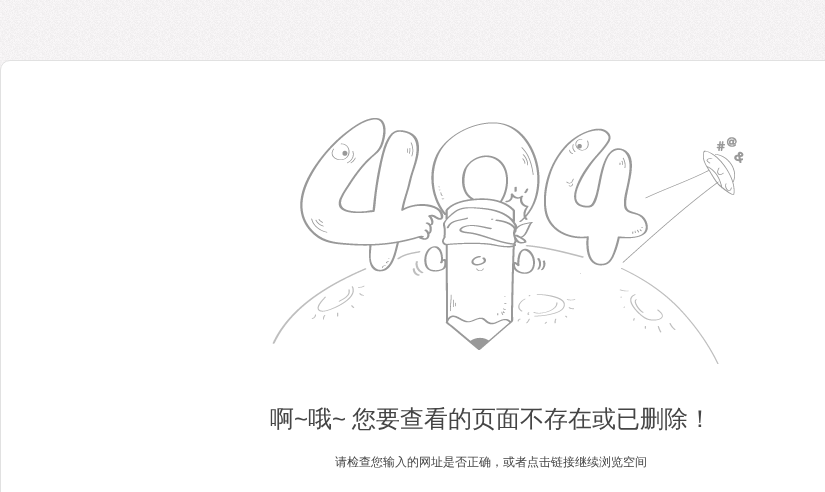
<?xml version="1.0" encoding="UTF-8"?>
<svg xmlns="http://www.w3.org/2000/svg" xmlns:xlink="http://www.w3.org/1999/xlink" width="825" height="492">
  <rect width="100%" height="100%" fill="#ffffff" />
  <image x="0" y="0" width="825" height="70" xlink:href="image1.png" />
  <rect x="0.5" y="60.5" width="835" height="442" rx="9.5" fill="#ffffff" stroke="#e1e1e1" />
  <image x="272" y="118" width="472" height="246" xlink:href="image2.png" />
  <text x="270" y="427" style="font-family: WenQuanYi Zen Hei; font-size: 24px; font-weight: 500; fill: #454545">啊</text>
  <text x="294" y="427" style="font-family: Liberation Sans; font-size: 24px; fill: #454545">~</text>
  <text x="308" y="427" style="font-family: WenQuanYi Zen Hei; font-size: 24px; font-weight: 500; fill: #454545">哦</text>
  <text x="332" y="427" style="font-family: Liberation Sans; font-size: 24px; fill: #454545">~</text>
  <text x="352" y="427" style="font-family: WenQuanYi Zen Hei; font-size: 24px; font-weight: 500; fill: #454545">您要查看的页面不存在或已删除！</text>
  <text x="335" y="466" style="font-family: WenQuanYi Zen Hei; font-size: 12px; font-weight: 500; fill: #454545">请检查您输入的网址是否正确，或者点击链接继续浏览空间</text>
</svg>
